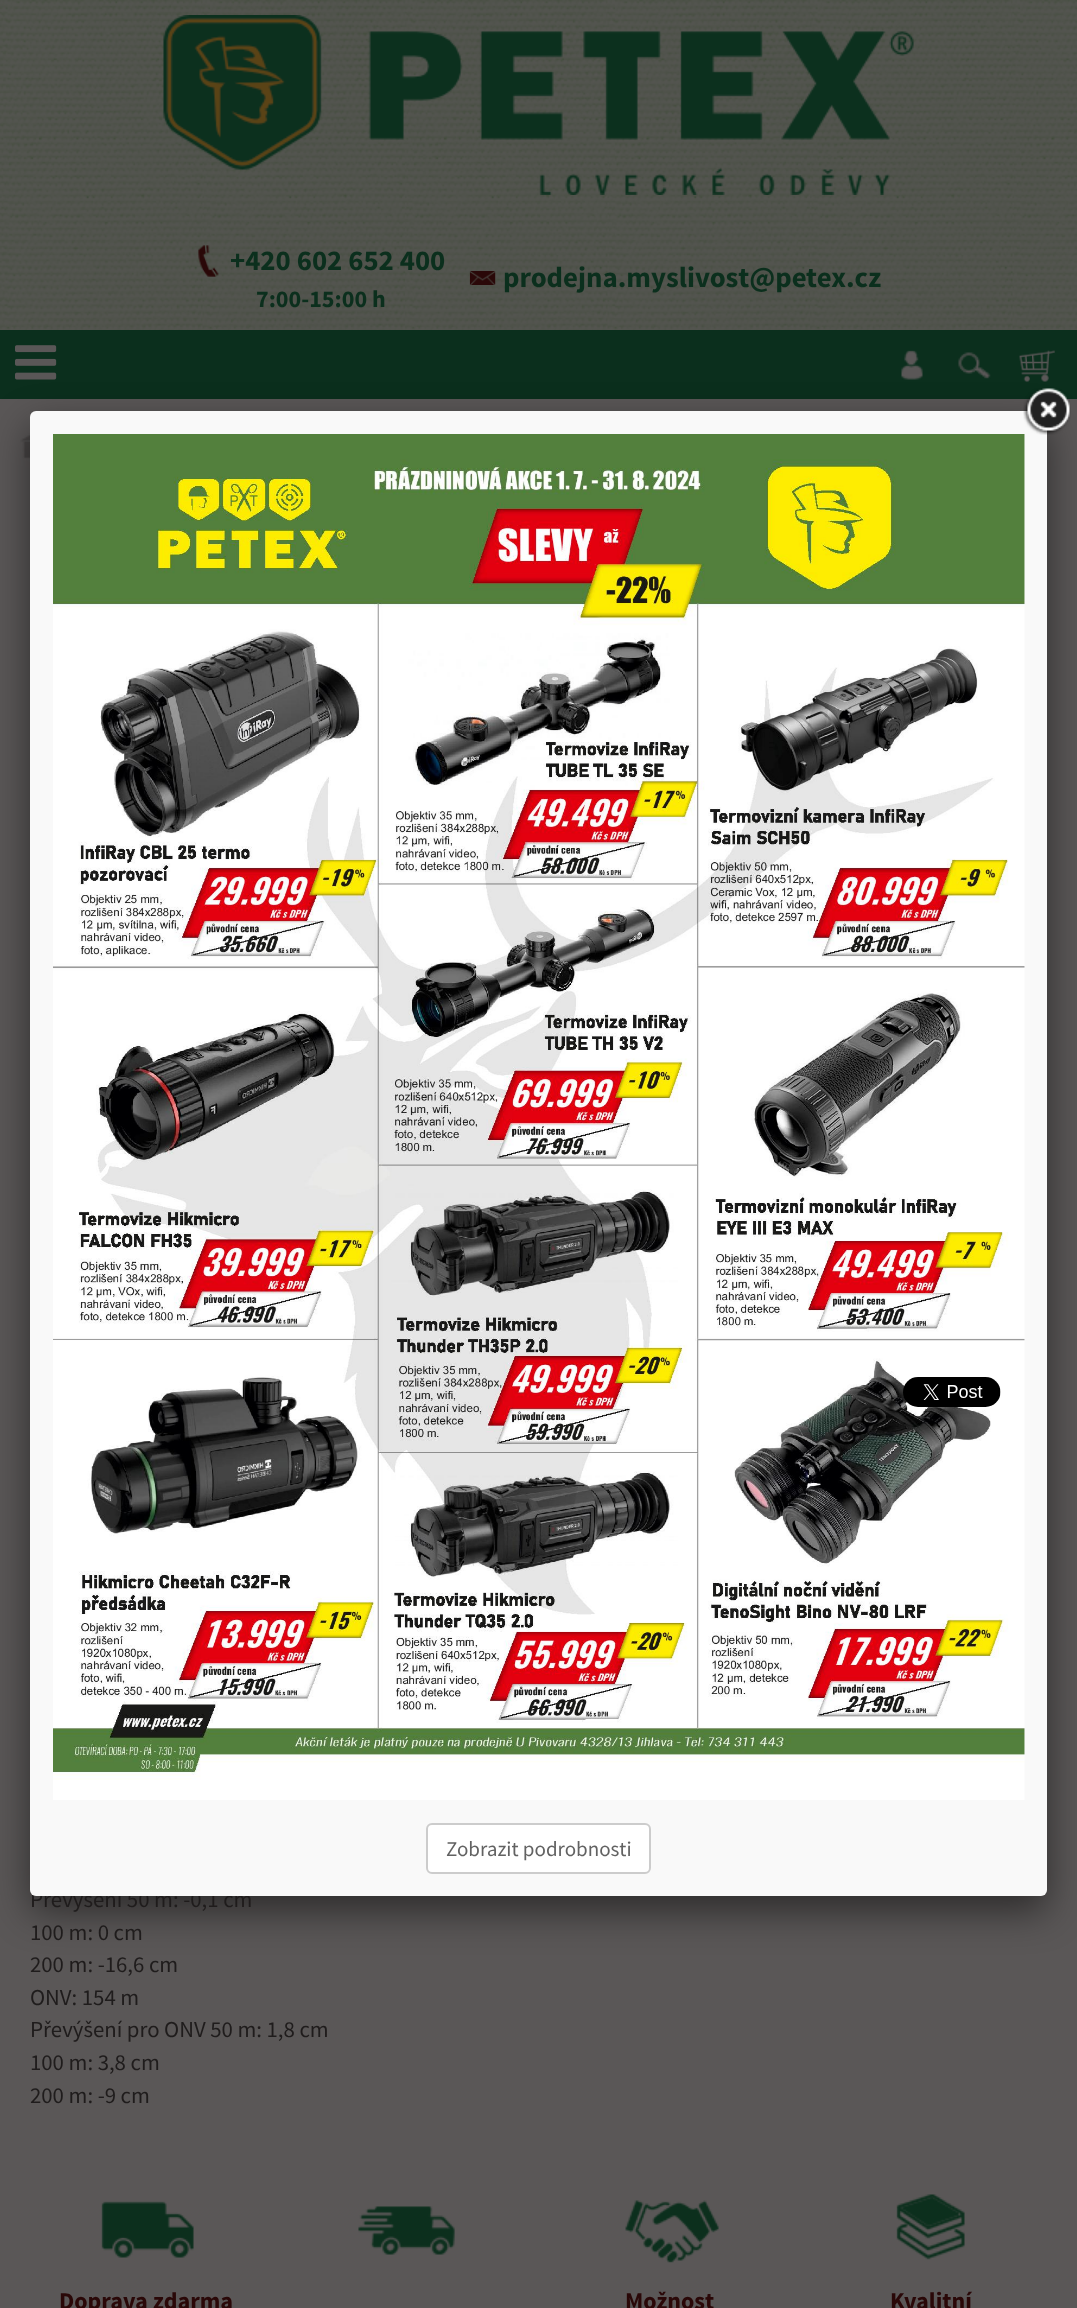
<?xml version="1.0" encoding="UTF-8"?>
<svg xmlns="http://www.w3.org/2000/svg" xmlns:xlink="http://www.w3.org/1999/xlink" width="1077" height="2308">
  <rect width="100%" height="100%" fill="#ffffff" />
  <image x="0" y="0" width="1077" height="330" xlink:href="image1.png" />
  <image x="163" y="15" width="751" height="180" xlink:href="image2.png" />
  <image x="198" y="245" width="21" height="32" xlink:href="image3.png" />
  <image x="469" y="271" width="27" height="14" xlink:href="image4.png" />
  <rect y="330" width="1077" height="69" fill="#0b2f1d" />
  <image x="15" y="345" width="42" height="35" xlink:href="image5.png" />
  <image x="901" y="350" width="22" height="30" xlink:href="image6.png" />
  <image x="958" y="352" width="33" height="27" xlink:href="image7.png" />
  <image x="1019" y="350" width="36" height="32" xlink:href="image8.png" />
  <rect y="399" width="1077" height="1909" fill="#5a5757" />
  <image x="20" y="433" width="10" height="26" xlink:href="image11.png" />
  <rect x="30" y="426" width="1017" height="1485" rx="6" fill="#000000" fill-opacity="0.5" filter="blur(19px)" />
  <image x="358" y="2206" width="97" height="49" xlink:href="image13.png" />
  <image x="101" y="2201" width="93" height="57" xlink:href="image14.png" />
  <image x="625" y="2200" width="94" height="63" xlink:href="image15.png" />
  <image x="896" y="2194" width="69" height="66" xlink:href="image16.png" />
  <text x="230" y="270" style="font-family: Source Sans Pro; font-size: 28.75px; font-weight: bold; fill: #0b2f1d">+420 602 652 400</text>
  <text x="256" y="307" style="font-family: Source Sans Pro; font-size: 24px; font-weight: bold; fill: #0b2f1d">7:00-15:00 h</text>
  <text x="503" y="287" style="font-family: Source Sans Pro; font-size: 28.75px; font-weight: bold; fill: #0b2f1d">prodejna.myslivost@petex.cz</text>
  <text x="30" y="1907" style="font-family: Source Sans Pro; font-size: 22.75px; fill: #1f1c1c">Převýšení 50 m: -0,1 cm</text>
  <rect x="30" y="411" width="1017" height="1485" rx="6" fill="#f9f9f9" />
  <image x="53" y="434" width="972" height="1366" xlink:href="image10.png" />
  <image x="903" y="1377" width="98" height="30" xlink:href="image12.png" />
  <image x="1023" y="388" width="48" height="47" xlink:href="image9.png" />
  <rect x="427" y="1824" width="223" height="49" rx="5" fill="#ffffff" stroke="#cccccc" stroke-width="2" />
  <text x="446" y="1856" style="font-family: Source Sans Pro; font-size: 21px; fill: #626262">Zobrazit podrobnosti</text>
  <text x="30" y="1940" style="font-family: Source Sans Pro; font-size: 22.75px; fill: #1f1c1c">100 m: 0 cm</text>
  <text x="30" y="1972" style="font-family: Source Sans Pro; font-size: 22.75px; fill: #1f1c1c">200 m: -16,6 cm</text>
  <text x="30" y="2005" style="font-family: Source Sans Pro; font-size: 22.75px; fill: #1f1c1c">ONV: 154 m</text>
  <text x="30" y="2037" style="font-family: Source Sans Pro; font-size: 22.75px; fill: #1f1c1c">Převýšení pro ONV 50 m: 1,8 cm</text>
  <text x="30" y="2070" style="font-family: Source Sans Pro; font-size: 22.75px; fill: #1f1c1c">100 m: 3,8 cm</text>
  <text x="30" y="2103" style="font-family: Source Sans Pro; font-size: 22.75px; fill: #1f1c1c">200 m: -9 cm</text>
  <text x="59" y="2309" style="font-family: Source Sans Pro; font-size: 24px; font-weight: bold; fill: #2a0808">Doprava zdarma</text>
  <text x="625" y="2309" style="font-family: Source Sans Pro; font-size: 24px; font-weight: bold; fill: #2a0808">Možnost</text>
  <text x="890" y="2309" style="font-family: Source Sans Pro; font-size: 24px; font-weight: bold; fill: #2a0808">Kvalitní</text>
</svg>
